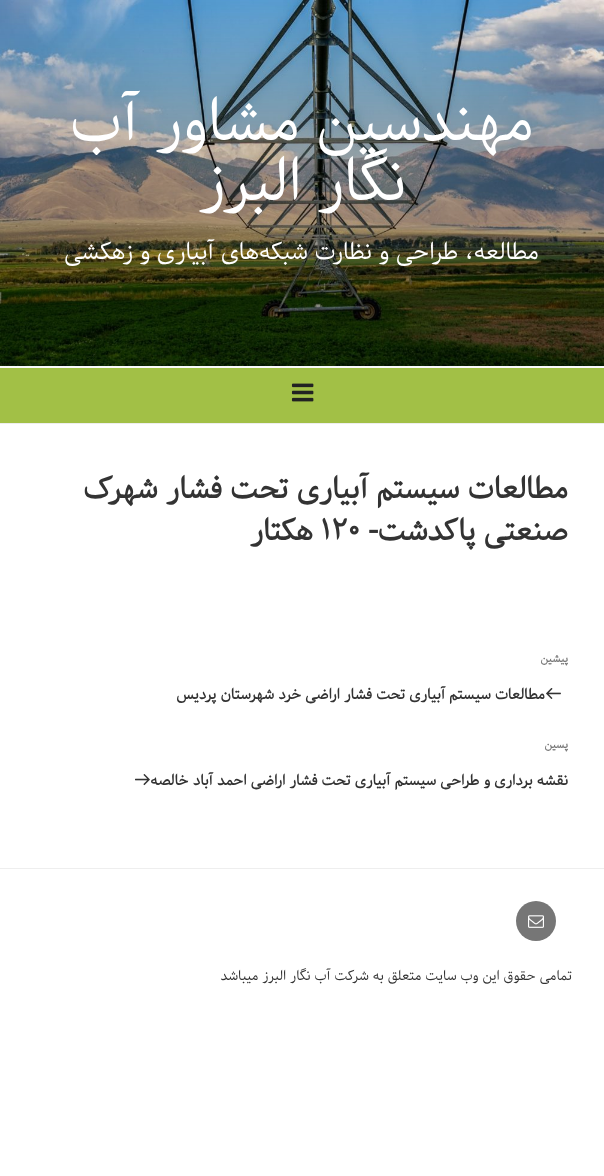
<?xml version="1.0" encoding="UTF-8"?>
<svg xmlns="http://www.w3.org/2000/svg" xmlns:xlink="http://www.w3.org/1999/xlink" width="604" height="1176">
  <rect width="100%" height="100%" fill="#ffffff" />
  <rect y="366" width="604" height="2" fill="#fafafa" />
  <image x="0" y="0" width="604" height="366" xlink:href="image1.png" />
  <rect y="368" width="604" height="55" fill="#a2c046" />
  <rect y="423" width="604" height="1" fill="#eeeeee" />
  <image x="291" y="383" width="23" height="19" xlink:href="image2.png" />
  <image x="546" y="688" width="15" height="11" xlink:href="image3.png" />
  <image x="135" y="774" width="15" height="12" xlink:href="image4.png" />
  <rect y="868" width="604" height="1" fill="#eeeeee" />
  <circle cx="536" cy="921" r="20" fill="#767676" />
  <image x="528" y="915" width="16" height="13" xlink:href="image5.png" />
  <text x="534" y="140" style="font-family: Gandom; font-size: 60px; direction: rtl; fill: #ffffff">مهندسین مشاور آب</text>
  <text x="406" y="200" style="font-family: Gandom; font-size: 60px; direction: rtl; fill: #ffffff">نگار البرز</text>
  <text x="539" y="259" style="font-family: Gandom; font-size: 24px; direction: rtl; fill: #ffffff">مطالعه، طراحی‌ و نظارت شبکه‌های آبیاری و زهکشی</text>
  <text x="568" y="498" style="font-family: Gandom; font-size: 30px; font-weight: bold; direction: rtl; fill: #333333">مطالعات سیستم آبیاری تحت فشار شهرک</text>
  <text x="568" y="540" style="font-family: Gandom; font-size: 30px; font-weight: bold; direction: rtl; fill: #333333">صنعتی پاکدشت-</text>
  <text x="321" y="540" style="font-family: Gandom; font-size: 30px; font-weight: bold; fill: #333333">۱۲۰</text>
  <text x="313" y="540" style="font-family: Gandom; font-size: 30px; font-weight: bold; direction: rtl; fill: #333333">هکتار</text>
  <text x="568" y="662" style="font-family: Gandom; font-size: 11px; font-weight: bold; direction: rtl; fill: #767676">پیشین</text>
  <text x="545" y="699" style="font-family: Gandom; font-size: 15px; font-weight: bold; direction: rtl; fill: #333333">مطالعات سیستم آبیاری تحت فشار اراضی خرد شهرستان پردیس</text>
  <text x="568" y="748" style="font-family: Gandom; font-size: 11px; font-weight: bold; direction: rtl; fill: #767676">پسین</text>
  <text x="568" y="785" style="font-family: Gandom; font-size: 15px; font-weight: bold; direction: rtl; fill: #333333">نقشه برداری و طراحی سیستم آبیاری تحت فشار اراضی احمد آباد خالصه</text>
  <text x="572" y="980" style="font-family: Gandom; font-size: 14px; direction: rtl; fill: #333333">تمامی حقوق این وب سایت متعلق به شرکت آب نگار البرز میباشد</text>
</svg>
